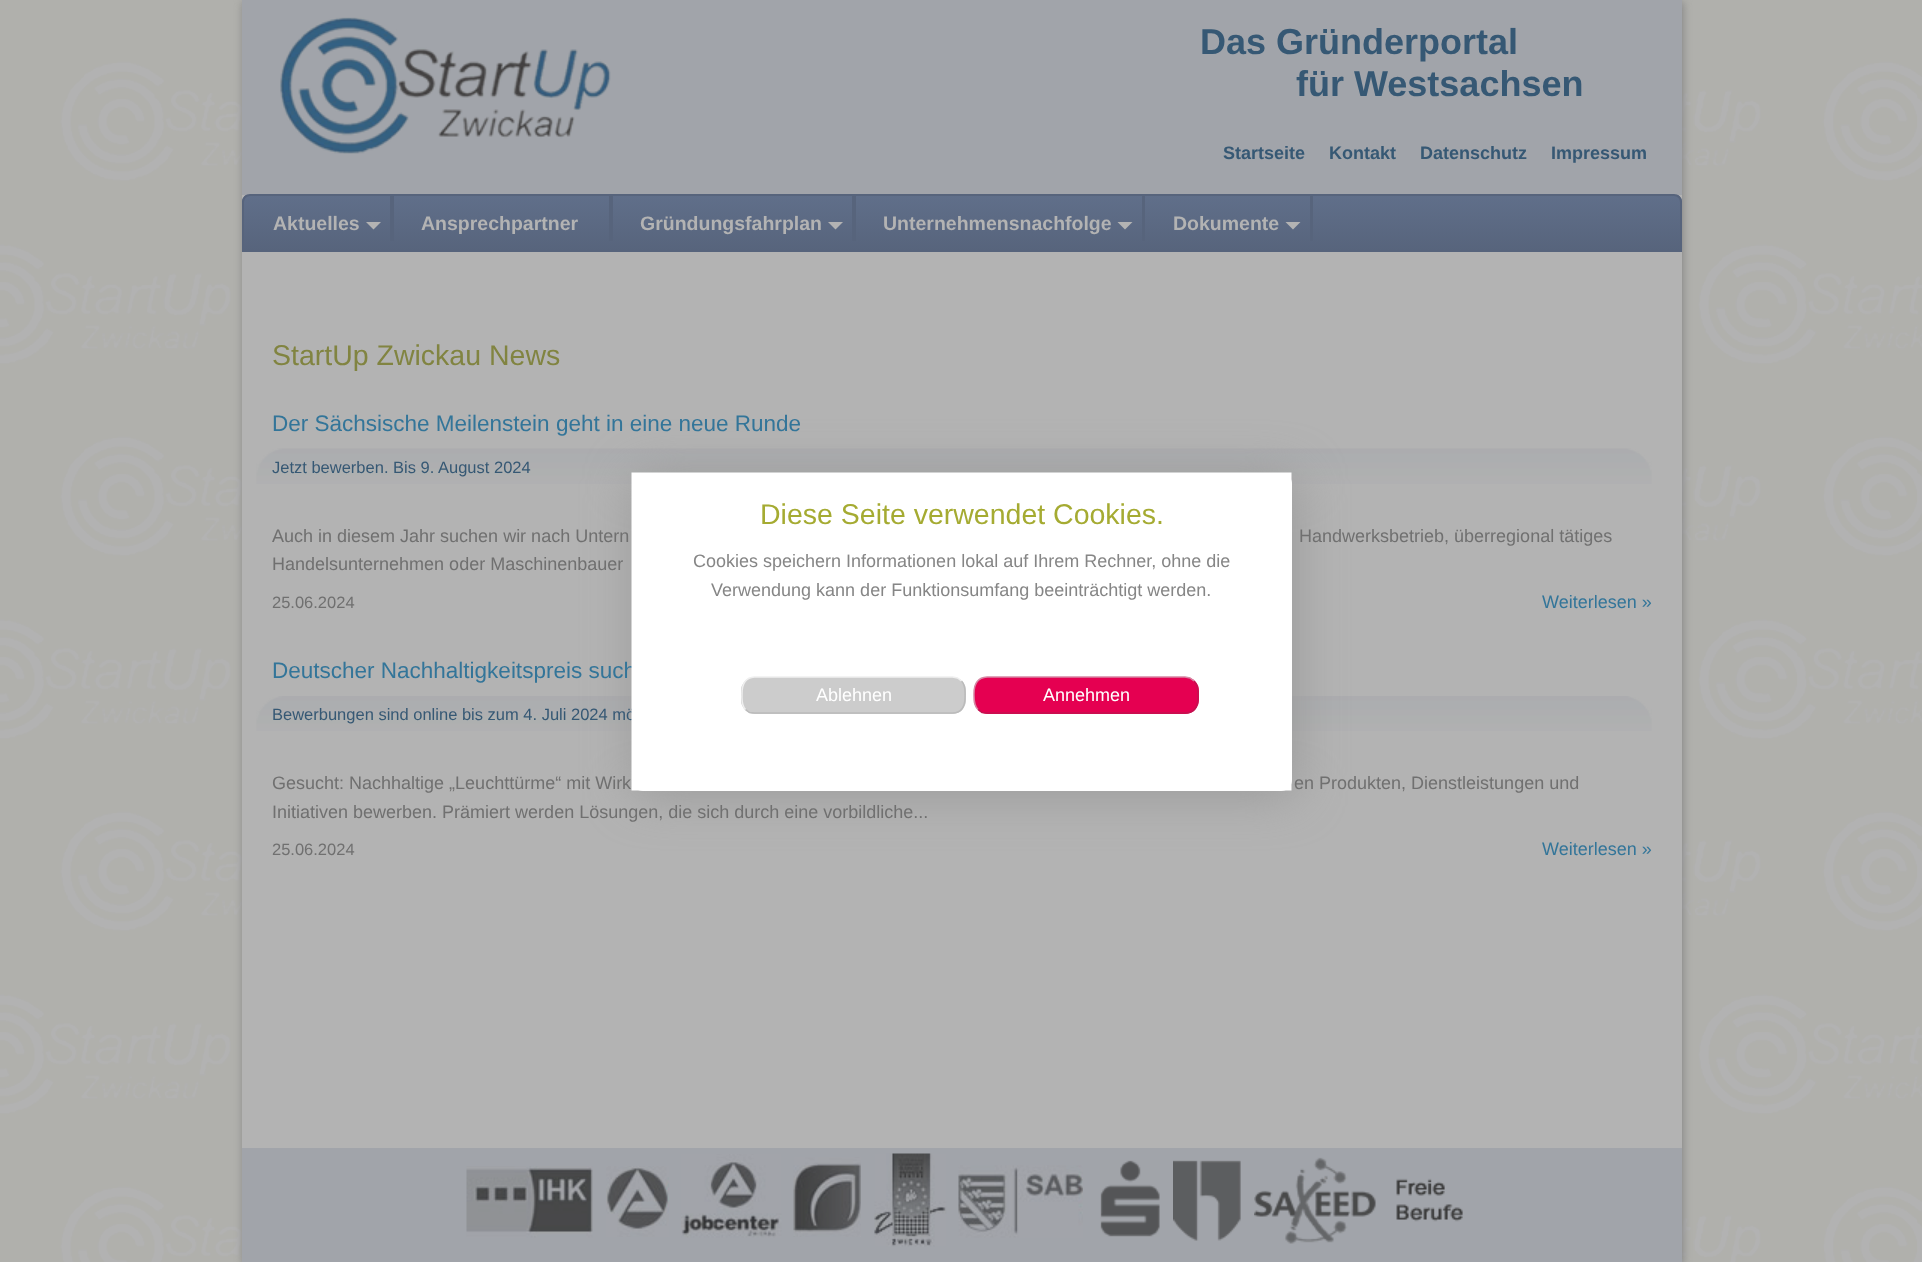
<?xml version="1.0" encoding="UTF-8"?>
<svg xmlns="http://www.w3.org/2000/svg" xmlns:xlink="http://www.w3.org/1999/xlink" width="1922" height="1262">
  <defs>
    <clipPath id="clip1"><path d="M 250 194 h 1424 c 4.5 0 8 3.5 8 8 v 50 h -1440 v -50 c 0 -4.5 3.5 -8 8 -8 z" /></clipPath>
    <linearGradient id="g1" gradientUnits="userSpaceOnUse" x1="962" y1="195" x2="962" y2="251"><stop offset="0" stop-color="#606f8a" /><stop offset="1" stop-color="#57647c" /></linearGradient>
  </defs>
  <rect width="100%" height="100%" fill="#ffffff" />
  <image x="0" y="0" width="1922" height="1262" xlink:href="image1.png" />
  <rect x="243" y="2" width="1440" height="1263" fill="#838383" filter="blur(4.5px)" />
  <rect x="242" y="195" width="1440" height="953" fill="#b3b3b3" />
  <rect x="242" width="1440" height="195" fill="#a1a4aa" />
  <image x="280" y="17" width="331" height="137" xlink:href="image2.png" />
  <g clip-path="url(#clip1)">
    <rect x="242" y="195" width="1440" height="55" fill="url(#g1)" />
  </g>
  <path d="M 250 195 h 1424 c 4 0 7 3 7 7 v 49 h -1438 v -49 c 0 -4 3 -7 7 -7 z" fill="none" stroke="#57647c" stroke-width="2" />
  <rect x="390" y="195" width="2" height="46" fill="#57647c" />
  <path d="M 366 222 h 15 l -7.5 7.5 z" fill="#b3b3b3" />
  <rect x="392" y="194" width="2" height="47" fill="#57647c" />
  <rect x="609" y="195" width="2" height="46" fill="#57647c" />
  <rect x="611" y="194" width="2" height="47" fill="#57647c" />
  <rect x="852" y="195" width="2" height="46" fill="#57647c" />
  <path d="M 828 222 h 15 l -7.5 7.5 z" fill="#b3b3b3" />
  <rect x="854" y="194" width="2" height="47" fill="#57647c" />
  <rect x="1142" y="195" width="1" height="46" fill="#57647c" />
  <path d="M 1117.5 222 h 15 l -7.5 7.5 z" fill="#b3b3b3" />
  <rect x="1143" y="194" width="2" height="47" fill="#57647c" />
  <rect x="1310" y="195" width="1" height="46" fill="#57647c" />
  <path d="M 1285.5 222 h 15 l -7.5 7.5 z" fill="#b3b3b3" />
  <rect x="1311" y="194" width="2" height="47" fill="#57647c" />
  <image x="256" y="448" width="1396" height="36" xlink:href="image3.png" />
  <image x="256" y="696" width="1396" height="35" xlink:href="image4.png" />
  <rect x="242" y="1148" width="1440" height="114" fill="#a1a4aa" />
  <image x="466" y="1166" width="127" height="72" xlink:href="image5.png" />
  <image x="606" y="1166" width="63" height="71" xlink:href="image6.png" />
  <image x="681" y="1154" width="101" height="84" xlink:href="image7.png" />
  <image x="793" y="1157" width="68" height="80" xlink:href="image8.png" />
  <image x="874" y="1153" width="73" height="94" xlink:href="image9.png" />
  <image x="958" y="1165" width="125" height="73" xlink:href="image10.png" />
  <image x="1100" y="1160" width="60" height="77" xlink:href="image11.png" />
  <image x="1173" y="1160" width="68" height="81" xlink:href="image12.png" />
  <image x="1254" y="1157" width="122" height="87" xlink:href="image13.png" />
  <image x="1396" y="1178" width="67" height="44" xlink:href="image14.png" />
  <rect x="635" y="476" width="660" height="318" rx="11" fill="#999999" filter="blur(24px)" />
  <text x="1200" y="54" style="font-family: Liberation Sans; font-size: 36px; font-weight: bold; fill: #365874">Das Gründerportal</text>
  <text x="1296" y="96" style="font-family: Liberation Sans; font-size: 36px; font-weight: bold; fill: #365874">für Westsachsen</text>
  <text x="1223" y="159" style="font-family: Liberation Sans; font-size: 18px; font-weight: bold; fill: #365874">Startseite</text>
  <text x="1329" y="159" style="font-family: Liberation Sans; font-size: 18px; font-weight: bold; fill: #365874">Kontakt</text>
  <text x="1420" y="159" style="font-family: Liberation Sans; font-size: 18px; font-weight: bold; fill: #365874">Datenschutz</text>
  <text x="1551" y="159" style="font-family: Liberation Sans; font-size: 18px; font-weight: bold; fill: #365874">Impressum</text>
  <text x="273" y="230" style="font-family: Liberation Sans; font-size: 19.5px; font-weight: bold; fill: #b3b3b3">Aktuelles</text>
  <text x="421" y="230" style="font-family: Liberation Sans; font-size: 19.5px; font-weight: bold; fill: #b3b3b3">Ansprechpartner</text>
  <text x="640" y="230" style="font-family: Liberation Sans; font-size: 19.5px; font-weight: bold; fill: #b3b3b3">Gründungsfahrplan</text>
  <text x="883" y="230" style="font-family: Liberation Sans; font-size: 19.5px; font-weight: bold; fill: #b3b3b3">Unternehmensnachfolge</text>
  <text x="1173" y="230" style="font-family: Liberation Sans; font-size: 19.5px; font-weight: bold; fill: #b3b3b3">Dokumente</text>
  <text x="272" y="365" style="font-family: Liberation Sans; font-size: 28.5px; fill: #818441">StartUp Zwickau News</text>
  <text x="272" y="431" style="font-family: Liberation Sans; font-size: 22.5px; fill: #337599">Der Sächsische Meilenstein geht in eine neue Runde</text>
  <text x="272" y="473" style="font-family: Liberation Sans; font-size: 16.5px; fill: #365874">Jetzt bewerben. Bis 9. August 2024</text>
  <text x="272" y="542" style="font-family: Liberation Sans; font-size: 18px; fill: #707070">Auch in diesem Jahr suchen wir nach Untern</text>
  <text x="1299" y="542" style="font-family: Liberation Sans; font-size: 18px; fill: #707070">Handwerksbetrieb, überregional tätiges</text>
  <text x="272" y="570" style="font-family: Liberation Sans; font-size: 18px; fill: #707070">Handelsunternehmen oder Maschinenbauer</text>
  <text x="272" y="608" style="font-family: Liberation Sans; font-size: 16.5px; fill: #707070">25.06.2024</text>
  <text x="1542" y="608" style="font-family: Liberation Sans; font-size: 18px; fill: #337599">Weiterlesen »</text>
  <text x="272" y="678" style="font-family: Liberation Sans; font-size: 22.5px; fill: #337599">Deutscher Nachhaltigkeitspreis such</text>
  <text x="272" y="720" style="font-family: Liberation Sans; font-size: 16.5px; fill: #365874">Bewerbungen sind online bis zum 4. Juli 2024 mö</text>
  <text x="272" y="789" style="font-family: Liberation Sans; font-size: 18px; fill: #707070">Gesucht: Nachhaltige „Leuchttürme“ mit Wirk</text>
  <text x="1294" y="789" style="font-family: Liberation Sans; font-size: 18px; fill: #707070">en Produkten, Dienstleistungen und</text>
  <text x="272" y="818" style="font-family: Liberation Sans; font-size: 18px; fill: #707070">Initiativen bewerben. Prämiert werden Lösungen, die sich durch eine vorbildliche...</text>
  <text x="272" y="855" style="font-family: Liberation Sans; font-size: 16.5px; fill: #707070">25.06.2024</text>
  <text x="1542" y="855" style="font-family: Liberation Sans; font-size: 18px; fill: #337599">Weiterlesen »</text>
  <rect x="632" y="473" width="660" height="318" rx="11" fill="#ffffff" />
  <path d="M 646.5 487.5 h 630 v 288 h -630 z" fill="none" stroke="#ffffff" stroke-width="30" />
  <text x="760" y="524" style="font-family: Liberation Sans; font-size: 28.5px; fill: #a5ab32">Diese Seite verwendet Cookies.</text>
  <text x="693" y="567" style="font-family: Liberation Sans; font-size: 18px; fill: #868686">Cookies speichern Informationen lokal auf Ihrem Rechner, ohne die</text>
  <text x="711" y="596" style="font-family: Liberation Sans; font-size: 18px; fill: #868686">Verwendung kann der Funktionsumfang beeinträchtigt werden.</text>
  <rect x="741" y="677" width="225" height="37" rx="14" fill="#cccccc" />
  <path d="M 961.5 681 c 4.5 4.5 3.5 10.5 3.5 16 c 0 8.5 -2.5 16 -12.5 16 h -198 l -5 -0.5 l -4 -3" fill="none" stroke="#bbbbbb" stroke-width="1.5" />
  <path d="M 745.5 709.5 c -4.5 -4.5 -3.5 -10.5 -3.5 -16 c 0 -8.5 2.5 -16 12.5 -16.5 h 198 l 5 1 l 4 3" fill="none" stroke="#efefef" stroke-width="1.5" />
  <text x="816" y="701" style="font-family: Liberation Sans; font-size: 18px; fill: #ffffff">Ablehnen</text>
  <rect x="974" y="677" width="225" height="37" rx="14" fill="#e50051" />
  <path d="M 1194 681 c 4.5 4.5 4 10.5 4 16 c 0 8.5 -3 16 -13 16 h -198 l -5 -0.5 l -4 -3" fill="none" stroke="#c31250" stroke-width="1.5" />
  <path d="M 978 709.5 c -4.5 -4.5 -4 -10.5 -4 -16 c 0 -8.5 3 -16 13 -16.5 h 198 l 5 1 l 4 3" fill="none" stroke="#d687a4" stroke-width="1.5" />
  <text x="1043" y="701" style="font-family: Liberation Sans; font-size: 18px; fill: #ffffff">Annehmen</text>
</svg>
